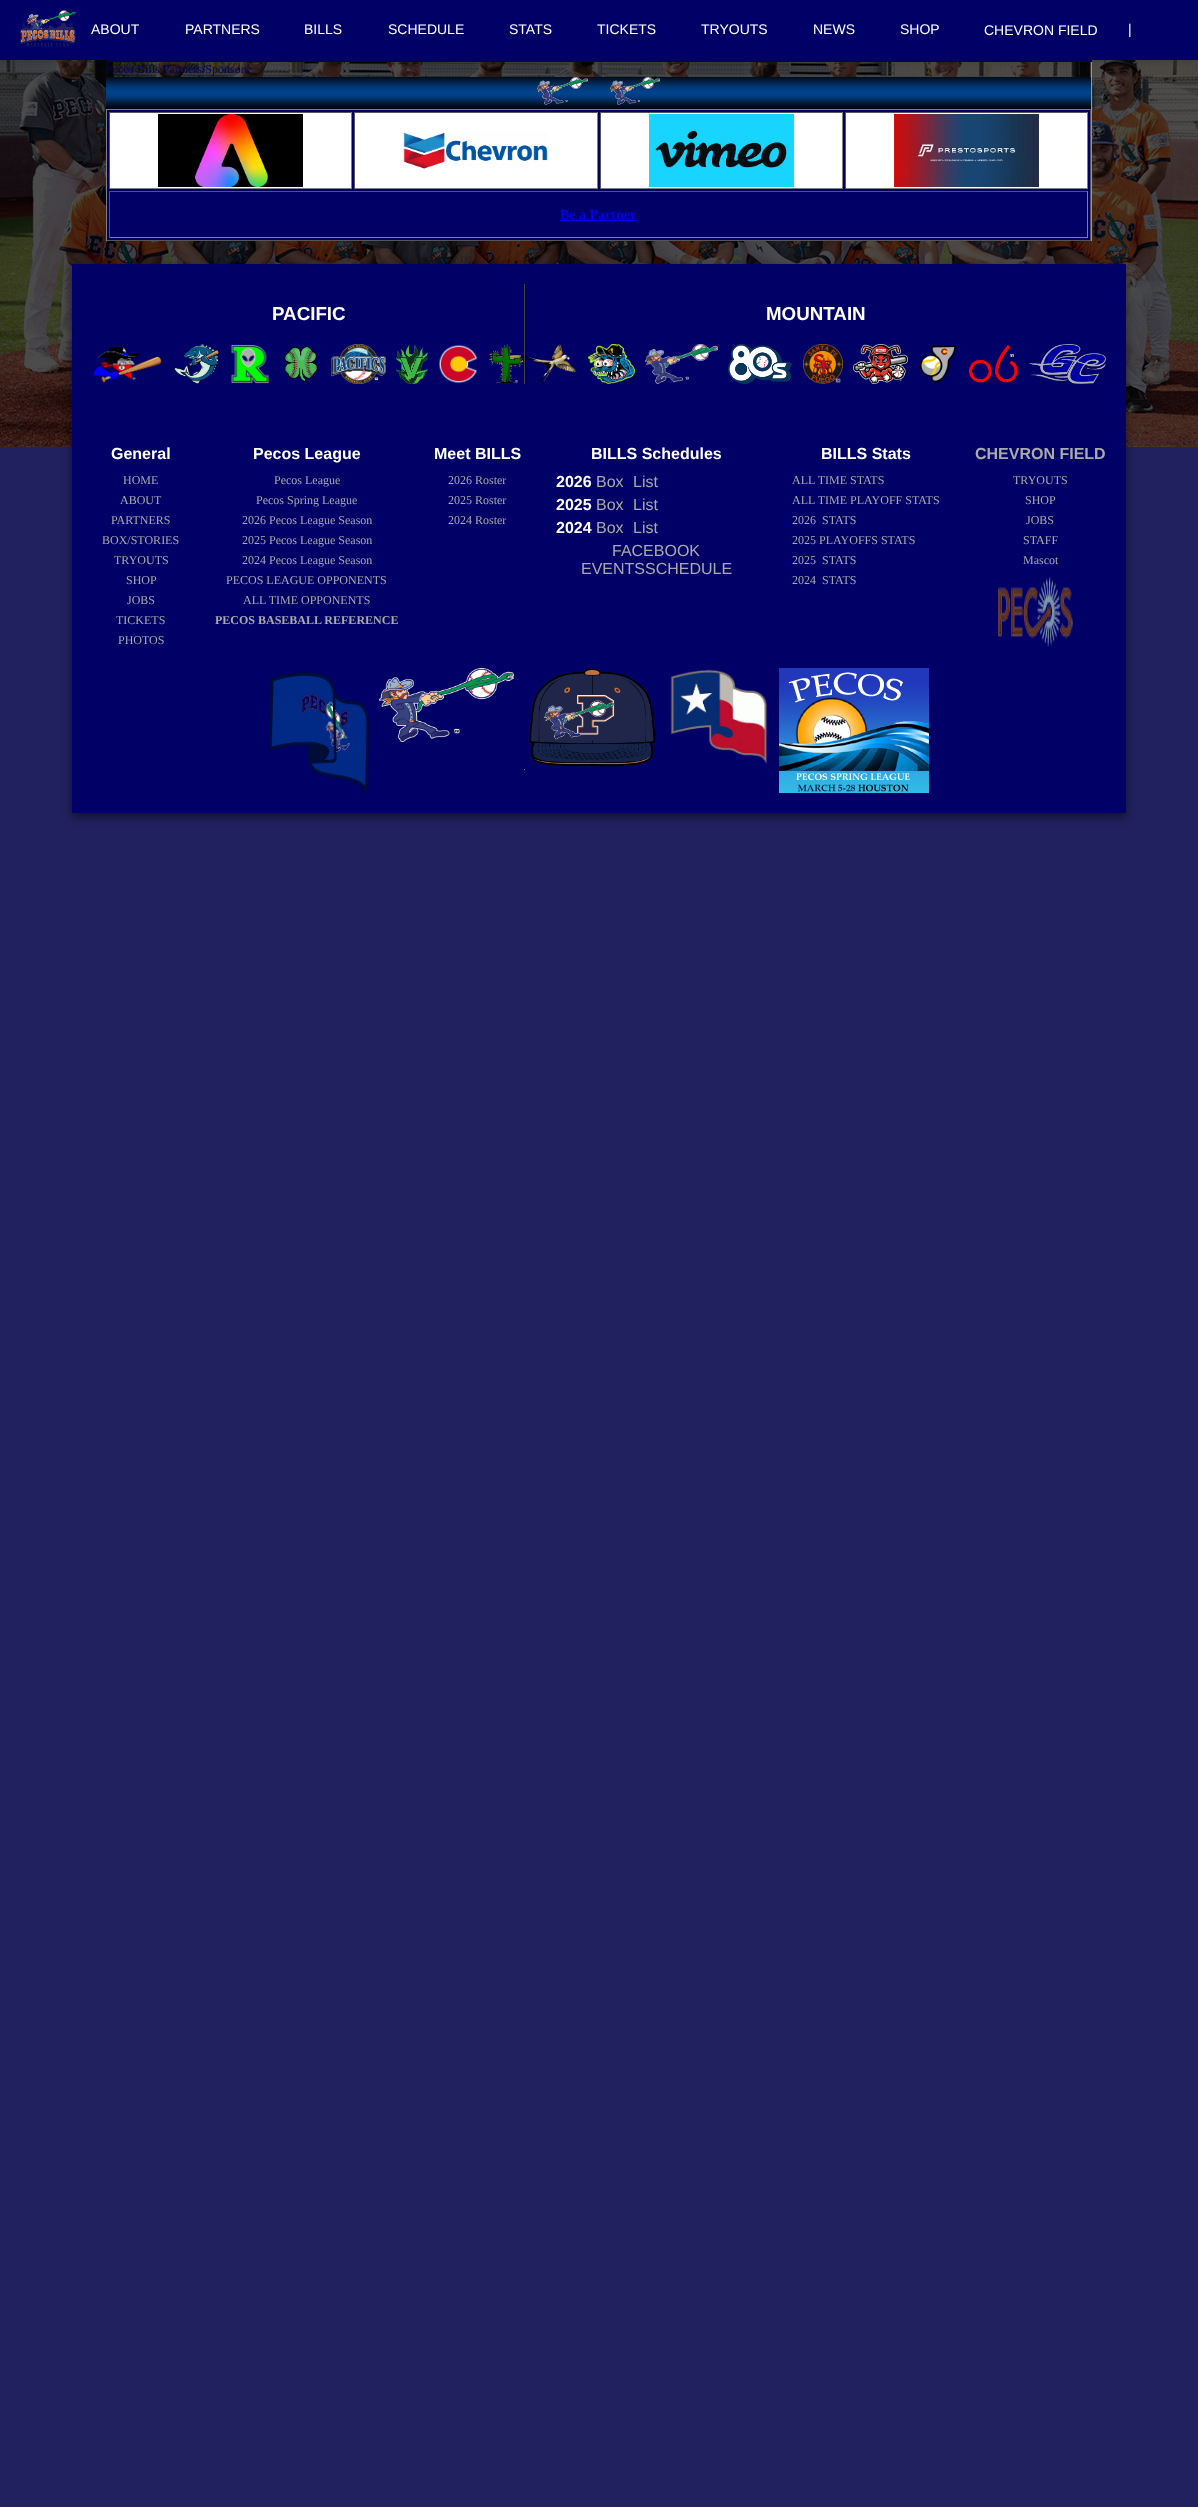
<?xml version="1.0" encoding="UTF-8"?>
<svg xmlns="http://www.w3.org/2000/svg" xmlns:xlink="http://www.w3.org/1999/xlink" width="1198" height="2507">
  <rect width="100%" height="100%" fill="#21215f" />
  <image x="0" y="60" width="1198" height="387" xlink:href="image1.png" />
  <rect x="107" y="60" width="985" height="2" fill="#010066" />
  <rect x="1091" y="62" width="1" height="179" fill="#00ff00" />
  <rect y="2" width="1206" height="60" fill="#000000" fill-opacity="0.1" filter="blur(2.5px)" />
  <rect width="1198" height="60" fill="#000066" />
  <image x="20" y="10" width="56" height="37" xlink:href="image2.png" />
  <image x="106" y="77" width="985" height="32" xlink:href="image3.png" />
  <image x="537" y="77" width="51" height="28" xlink:href="image4.png" />
  <image x="610" y="77" width="50" height="28" xlink:href="image5.png" />
  <rect x="107" y="110" width="983" height="130" fill="#010066" />
  <rect x="106" y="109" width="985" height="1" fill="#808080" />
  <rect x="1090" y="109" width="1" height="132" fill="#555555" />
  <rect x="106" y="240" width="985" height="1" fill="#555555" />
  <rect x="106" y="109" width="1" height="132" fill="#808080" />
  <rect x="110" y="113" width="241" height="75" fill="#ffffff" />
  <rect x="109" y="112" width="243" height="1" fill="#555555" />
  <rect x="351" y="112" width="1" height="77" fill="#808080" />
  <rect x="109" y="188" width="243" height="1" fill="#808080" />
  <rect x="109" y="112" width="1" height="77" fill="#555555" />
  <image x="158" y="114" width="145" height="73" xlink:href="image6.png" />
  <rect x="355" y="113" width="242" height="75" fill="#ffffff" />
  <rect x="354" y="112" width="244" height="1" fill="#555555" />
  <rect x="597" y="112" width="1" height="77" fill="#808080" />
  <rect x="354" y="188" width="244" height="1" fill="#808080" />
  <rect x="354" y="112" width="1" height="77" fill="#555555" />
  <image x="403" y="132" width="145" height="37" xlink:href="image7.png" />
  <rect x="601" y="113" width="241" height="75" fill="#ffffff" />
  <rect x="600" y="112" width="243" height="1" fill="#555555" />
  <rect x="842" y="112" width="1" height="77" fill="#808080" />
  <rect x="600" y="188" width="243" height="1" fill="#808080" />
  <rect x="600" y="112" width="1" height="77" fill="#555555" />
  <image x="649" y="114" width="145" height="73" xlink:href="image8.png" />
  <rect x="846" y="113" width="241" height="75" fill="#ffffff" />
  <rect x="845" y="112" width="243" height="1" fill="#555555" />
  <rect x="1087" y="112" width="1" height="77" fill="#808080" />
  <rect x="845" y="188" width="243" height="1" fill="#808080" />
  <rect x="845" y="112" width="1" height="77" fill="#555555" />
  <image x="894" y="114" width="145" height="73" xlink:href="image9.png" />
  <rect x="109" y="191" width="979" height="1" fill="#555555" />
  <rect x="1087" y="191" width="1" height="47" fill="#808080" />
  <rect x="109" y="237" width="979" height="1" fill="#808080" />
  <rect x="109" y="191" width="1" height="47" fill="#555555" />
  <rect x="560" y="220" width="77" height="1" fill="#0000ee" />
  <rect x="72" y="268" width="1054" height="549" fill="#000000" fill-opacity="0.5" filter="blur(5px)" />
  <rect x="72" y="264" width="1054" height="549" fill="#000066" />
  <image x="93" y="346" width="69" height="37" xlink:href="image10.png" />
  <image x="174" y="344" width="45" height="40" xlink:href="image11.png" />
  <image x="231" y="344" width="39" height="40" xlink:href="image12.png" />
  <image x="284" y="346" width="34" height="36" xlink:href="image13.png" />
  <image x="331" y="344" width="55" height="40" xlink:href="image14.png" />
  <image x="396" y="344" width="32" height="40" xlink:href="image15.png" />
  <image x="438" y="344" width="40" height="40" xlink:href="image16.png" />
  <image x="488" y="344" width="36" height="40" xlink:href="image17.png" />
  <rect x="524" y="284" width="1" height="100" fill="#444444" />
  <image x="525" y="344" width="53" height="40" xlink:href="image18.png" />
  <image x="588" y="344" width="47" height="40" xlink:href="image19.png" />
  <image x="645" y="344" width="73" height="40" xlink:href="image20.png" />
  <image x="728" y="344" width="64" height="40" xlink:href="image21.png" />
  <image x="803" y="344" width="40" height="40" xlink:href="image22.png" />
  <image x="853" y="344" width="55" height="40" xlink:href="image23.png" />
  <image x="919" y="345" width="38" height="38" xlink:href="image24.png" />
  <image x="968" y="345" width="50" height="38" xlink:href="image25.png" />
  <image x="1029" y="344" width="77" height="40" xlink:href="image26.png" />
  <image x="998" y="576" width="75" height="71" xlink:href="image27.png" />
  <image x="269" y="672" width="100" height="121" xlink:href="image28.png" />
  <image x="379" y="668" width="135" height="74" xlink:href="image29.png" />
  <image x="524" y="668" width="132" height="102" xlink:href="image30.png" />
  <image x="670" y="669" width="98" height="95" xlink:href="image31.png" />
  <image x="779" y="668" width="150" height="125" xlink:href="image32.png" />
  <text x="91" y="34" style="font-family: Liberation Sans; font-size: 14px; fill: #ffffff">ABOUT</text>
  <text x="185" y="34" style="font-family: Liberation Sans; font-size: 14px; fill: #ffffff">PARTNERS</text>
  <text x="304" y="34" style="font-family: Liberation Sans; font-size: 14px; fill: #ffffff">BILLS</text>
  <text x="388" y="34" style="font-family: Liberation Sans; font-size: 14px; fill: #ffffff">SCHEDULE</text>
  <text x="509" y="34" style="font-family: Liberation Sans; font-size: 14px; fill: #ffffff">STATS</text>
  <text x="597" y="34" style="font-family: Liberation Sans; font-size: 14px; fill: #ffffff">TICKETS</text>
  <text x="701" y="34" style="font-family: Liberation Sans; font-size: 14px; fill: #ffffff">TRYOUTS</text>
  <text x="813" y="34" style="font-family: Liberation Sans; font-size: 14px; fill: #ffffff">NEWS</text>
  <text x="900" y="34" style="font-family: Liberation Sans; font-size: 14px; fill: #ffffff">SHOP</text>
  <text x="984" y="35" style="font-family: Liberation Sans; font-size: 14px; fill: #ffffff">CHEVRON FIELD</text>
  <text x="1128" y="34" style="font-family: Liberation Sans; font-size: 14px; fill: #ffffff">|</text>
  <text x="106" y="73" style="font-family: Liberation Serif; font-size: 12px; fill: #000066">Pecos Bills Partners/Sponsors</text>
  <text x="560" y="219" style="font-family: Liberation Serif; font-size: 14px; font-weight: bold; fill: #0000ee">Be a Partner</text>
  <text x="272" y="320" style="font-family: Liberation Sans; font-size: 18.75px; font-weight: bold; fill: #ffffff">PACIFIC</text>
  <text x="766" y="320" style="font-family: Liberation Sans; font-size: 18.75px; font-weight: bold; fill: #ffffff">MOUNTAIN</text>
  <text x="111" y="459" style="font-family: Liberation Sans; font-size: 16px; font-weight: bold; fill: #ffffff">General</text>
  <text x="123" y="484" style="font-family: Liberation Serif; font-size: 12px; fill: #aaaaaa">HOME</text>
  <text x="120" y="504" style="font-family: Liberation Serif; font-size: 12px; fill: #aaaaaa">ABOUT</text>
  <text x="111" y="524" style="font-family: Liberation Serif; font-size: 12px; fill: #aaaaaa">PARTNERS</text>
  <text x="102" y="544" style="font-family: Liberation Serif; font-size: 12px; fill: #aaaaaa">BOX/STORIES</text>
  <text x="114" y="564" style="font-family: Liberation Serif; font-size: 12px; fill: #aaaaaa">TRYOUTS</text>
  <text x="126" y="584" style="font-family: Liberation Serif; font-size: 12px; fill: #aaaaaa">SHOP</text>
  <text x="127" y="604" style="font-family: Liberation Serif; font-size: 12px; fill: #aaaaaa">JOBS</text>
  <text x="116" y="624" style="font-family: Liberation Serif; font-size: 12px; fill: #aaaaaa">TICKETS</text>
  <text x="118" y="644" style="font-family: Liberation Serif; font-size: 12px; fill: #aaaaaa">PHOTOS</text>
  <text x="253" y="459" style="font-family: Liberation Sans; font-size: 16px; font-weight: bold; fill: #ffffff">Pecos League</text>
  <text x="274" y="484" style="font-family: Liberation Serif; font-size: 12px; fill: #aaaaaa">Pecos League</text>
  <text x="256" y="504" style="font-family: Liberation Serif; font-size: 12px; fill: #aaaaaa">Pecos Spring League</text>
  <text x="242" y="524" style="font-family: Liberation Serif; font-size: 12px; fill: #aaaaaa">2026 Pecos League Season</text>
  <text x="242" y="544" style="font-family: Liberation Serif; font-size: 12px; fill: #aaaaaa">2025 Pecos League Season</text>
  <text x="242" y="564" style="font-family: Liberation Serif; font-size: 12px; fill: #aaaaaa">2024 Pecos League Season</text>
  <text x="226" y="584" style="font-family: Liberation Serif; font-size: 12px; fill: #aaaaaa">PECOS LEAGUE OPPONENTS</text>
  <text x="243" y="604" style="font-family: Liberation Serif; font-size: 12px; fill: #aaaaaa">ALL TIME OPPONENTS</text>
  <text x="215" y="624" style="font-family: Liberation Serif; font-size: 12px; font-weight: bold; fill: #aaaaaa">PECOS BASEBALL REFERENCE</text>
  <text x="434" y="459" style="font-family: Liberation Sans; font-size: 16px; font-weight: bold; fill: #ffffff">Meet BILLS</text>
  <text x="448" y="484" style="font-family: Liberation Serif; font-size: 12px; fill: #aaaaaa">2026 Roster</text>
  <text x="448" y="504" style="font-family: Liberation Serif; font-size: 12px; fill: #aaaaaa">2025 Roster</text>
  <text x="448" y="524" style="font-family: Liberation Serif; font-size: 12px; fill: #aaaaaa">2024 Roster</text>
  <text x="591" y="459" style="font-family: Liberation Sans; font-size: 16px; font-weight: bold; fill: #ffffff">BILLS Schedules</text>
  <text x="556" y="487" style="font-family: Liberation Sans; font-size: 16px; font-weight: bold; fill: #ffffff">2026</text>
  <text x="596" y="487" style="font-family: Liberation Sans; font-size: 16px; fill: #aaaaaa">Box</text>
  <text x="633" y="487" style="font-family: Liberation Sans; font-size: 16px; fill: #aaaaaa">List</text>
  <text x="556" y="510" style="font-family: Liberation Sans; font-size: 16px; font-weight: bold; fill: #ffffff">2025</text>
  <text x="596" y="510" style="font-family: Liberation Sans; font-size: 16px; fill: #aaaaaa">Box</text>
  <text x="633" y="510" style="font-family: Liberation Sans; font-size: 16px; fill: #aaaaaa">List</text>
  <text x="556" y="533" style="font-family: Liberation Sans; font-size: 16px; font-weight: bold; fill: #ffffff">2024</text>
  <text x="596" y="533" style="font-family: Liberation Sans; font-size: 16px; fill: #aaaaaa">Box</text>
  <text x="633" y="533" style="font-family: Liberation Sans; font-size: 16px; fill: #aaaaaa">List</text>
  <text x="612" y="556" style="font-family: Liberation Sans; font-size: 16px; fill: #aaaaaa">FACEBOOK</text>
  <text x="581" y="574" style="font-family: Liberation Sans; font-size: 16px; fill: #aaaaaa">EVENTSSCHEDULE</text>
  <text x="821" y="459" style="font-family: Liberation Sans; font-size: 16px; font-weight: bold; fill: #ffffff">BILLS Stats</text>
  <text x="792" y="484" style="font-family: Liberation Serif; font-size: 12px; fill: #aaaaaa">ALL TIME STATS</text>
  <text x="792" y="504" style="font-family: Liberation Serif; font-size: 12px; fill: #aaaaaa">ALL TIME PLAYOFF STATS</text>
  <text x="792" y="524" style="font-family: Liberation Serif; font-size: 12px; fill: #aaaaaa" xml:space="preserve">2026  STATS</text>
  <text x="792" y="544" style="font-family: Liberation Serif; font-size: 12px; fill: #aaaaaa">2025 PLAYOFFS STATS</text>
  <text x="792" y="564" style="font-family: Liberation Serif; font-size: 12px; fill: #aaaaaa" xml:space="preserve">2025  STATS</text>
  <text x="792" y="584" style="font-family: Liberation Serif; font-size: 12px; fill: #aaaaaa" xml:space="preserve">2024  STATS</text>
  <text x="975" y="459" style="font-family: Liberation Sans; font-size: 16px; font-weight: bold; fill: #aaaaaa">CHEVRON FIELD</text>
  <text x="1013" y="484" style="font-family: Liberation Serif; font-size: 12px; fill: #aaaaaa">TRYOUTS</text>
  <text x="1025" y="504" style="font-family: Liberation Serif; font-size: 12px; fill: #aaaaaa">SHOP</text>
  <text x="1026" y="524" style="font-family: Liberation Serif; font-size: 12px; fill: #aaaaaa">JOBS</text>
  <text x="1023" y="544" style="font-family: Liberation Serif; font-size: 12px; fill: #aaaaaa">STAFF</text>
  <text x="1023" y="564" style="font-family: Liberation Serif; font-size: 12px; fill: #aaaaaa">Mascot</text>
</svg>
